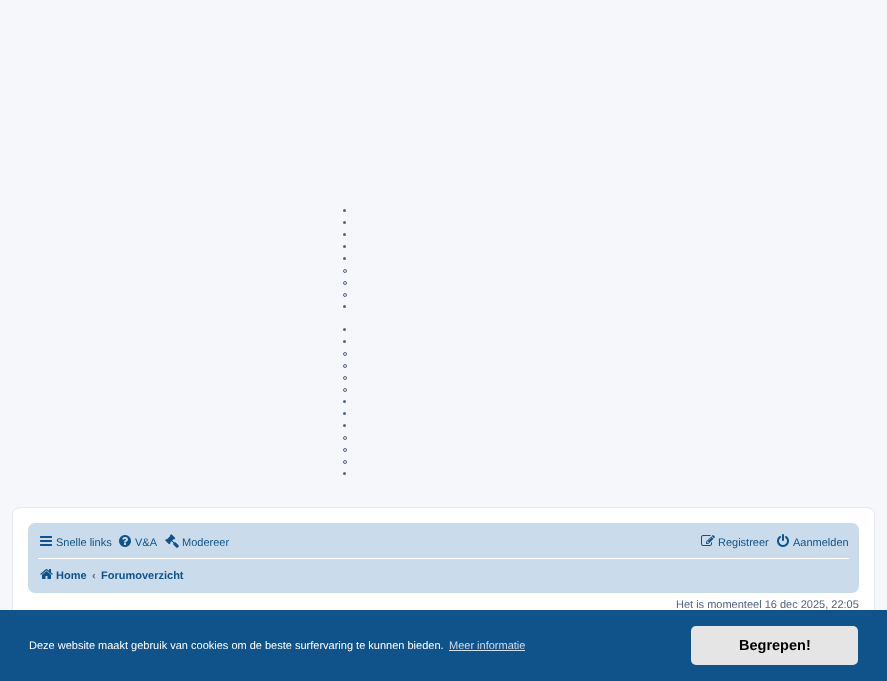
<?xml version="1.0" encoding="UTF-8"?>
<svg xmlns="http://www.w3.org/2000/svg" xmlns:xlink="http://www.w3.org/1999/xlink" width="887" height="681">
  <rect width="100%" height="100%" fill="#f5f7fa" />
  <circle cx="344.5" cy="210.5" r="1.5" fill="#536482" />
  <circle cx="344.5" cy="222.5" r="1.5" fill="#536482" />
  <circle cx="344.5" cy="234.5" r="1.5" fill="#536482" />
  <circle cx="344.5" cy="246.5" r="1.5" fill="#536482" />
  <circle cx="344.5" cy="258.5" r="1.5" fill="#536482" />
  <circle cx="345" cy="271" r="1.5" fill="none" stroke="#536482" />
  <circle cx="345" cy="283" r="1.5" fill="none" stroke="#536482" />
  <circle cx="345" cy="295" r="1.5" fill="none" stroke="#536482" />
  <circle cx="344.5" cy="306.5" r="1.5" fill="#536482" />
  <circle cx="344.5" cy="329.5" r="1.5" fill="#536482" />
  <circle cx="344.5" cy="341.5" r="1.5" fill="#536482" />
  <circle cx="345" cy="354" r="1.5" fill="none" stroke="#536482" />
  <circle cx="345" cy="366" r="1.5" fill="none" stroke="#536482" />
  <circle cx="345" cy="378" r="1.5" fill="none" stroke="#536482" />
  <circle cx="345" cy="390" r="1.5" fill="none" stroke="#536482" />
  <circle cx="344.5" cy="401.5" r="1.5" fill="#536482" />
  <circle cx="344.5" cy="413.5" r="1.5" fill="#536482" />
  <circle cx="344.5" cy="425.5" r="1.5" fill="#536482" />
  <circle cx="345" cy="438" r="1.5" fill="none" stroke="#536482" />
  <circle cx="345" cy="450" r="1.5" fill="none" stroke="#536482" />
  <circle cx="345" cy="462" r="1.5" fill="none" stroke="#536482" />
  <circle cx="344.5" cy="473.5" r="1.5" fill="#536482" />
  <rect x="12.5" y="507.5" width="862" height="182" rx="7.5" fill="#ffffff" stroke="#e6e9ed" />
  <rect x="28" y="523" width="831" height="70" rx="7" fill="#cadceb" />
  <image x="40" y="536" width="12" height="10" xlink:href="image1.png" />
  <image x="119" y="535" width="12" height="12" xlink:href="image2.png" />
  <image x="165" y="534" width="14" height="14" xlink:href="image3.png" />
  <image x="701" y="535" width="14" height="11" xlink:href="image4.png" />
  <image x="777" y="534" width="12" height="13" xlink:href="image5.png" />
  <rect x="38" y="558" width="811" height="1" fill="#ffffff" />
  <image x="40" y="569" width="13" height="10" xlink:href="image6.png" />
  <rect y="610" width="887" height="71" fill="#0f538a" />
  <rect x="449" y="650" width="76" height="1" fill="#cfdde8" />
  <rect x="691" y="626" width="167" height="39" rx="5" fill="#e5e5e5" />
  <text x="56" y="546" style="font-family: Liberation Sans; font-size: 11px; fill: #105289">Snelle links</text>
  <text x="135" y="546" style="font-family: Liberation Sans; font-size: 11px; fill: #105289">V&amp;A</text>
  <text x="182" y="546" style="font-family: Liberation Sans; font-size: 11px; fill: #105289">Modereer</text>
  <text x="718" y="546" style="font-family: Liberation Sans; font-size: 11px; fill: #105289">Registreer</text>
  <text x="793" y="546" style="font-family: Liberation Sans; font-size: 11px; fill: #105289">Aanmelden</text>
  <text x="56" y="579" style="font-family: Liberation Sans; font-size: 11px; font-weight: bold; fill: #105289">Home</text>
  <text x="92" y="579" style="font-family: Liberation Sans; font-size: 11px; font-weight: bold; fill: #536482">‹</text>
  <text x="101" y="579" style="font-family: Liberation Sans; font-size: 11px; font-weight: bold; fill: #105289">Forumoverzicht</text>
  <text x="676" y="608" style="font-family: Liberation Sans; font-size: 11px; fill: #536482">Het is momenteel 16 dec 2025, 22:05</text>
  <text x="29" y="649" style="font-family: Liberation Sans; font-size: 11px; fill: #ffffff">Deze website maakt gebruik van cookies om de beste surfervaring te kunnen bieden.</text>
  <text x="449" y="649" style="font-family: Liberation Sans; font-size: 11px; fill: #cfdde8">Meer informatie</text>
  <text x="739" y="650" style="font-family: Liberation Sans; font-size: 14.5px; font-weight: bold; fill: #000000">Begrepen!</text>
</svg>
